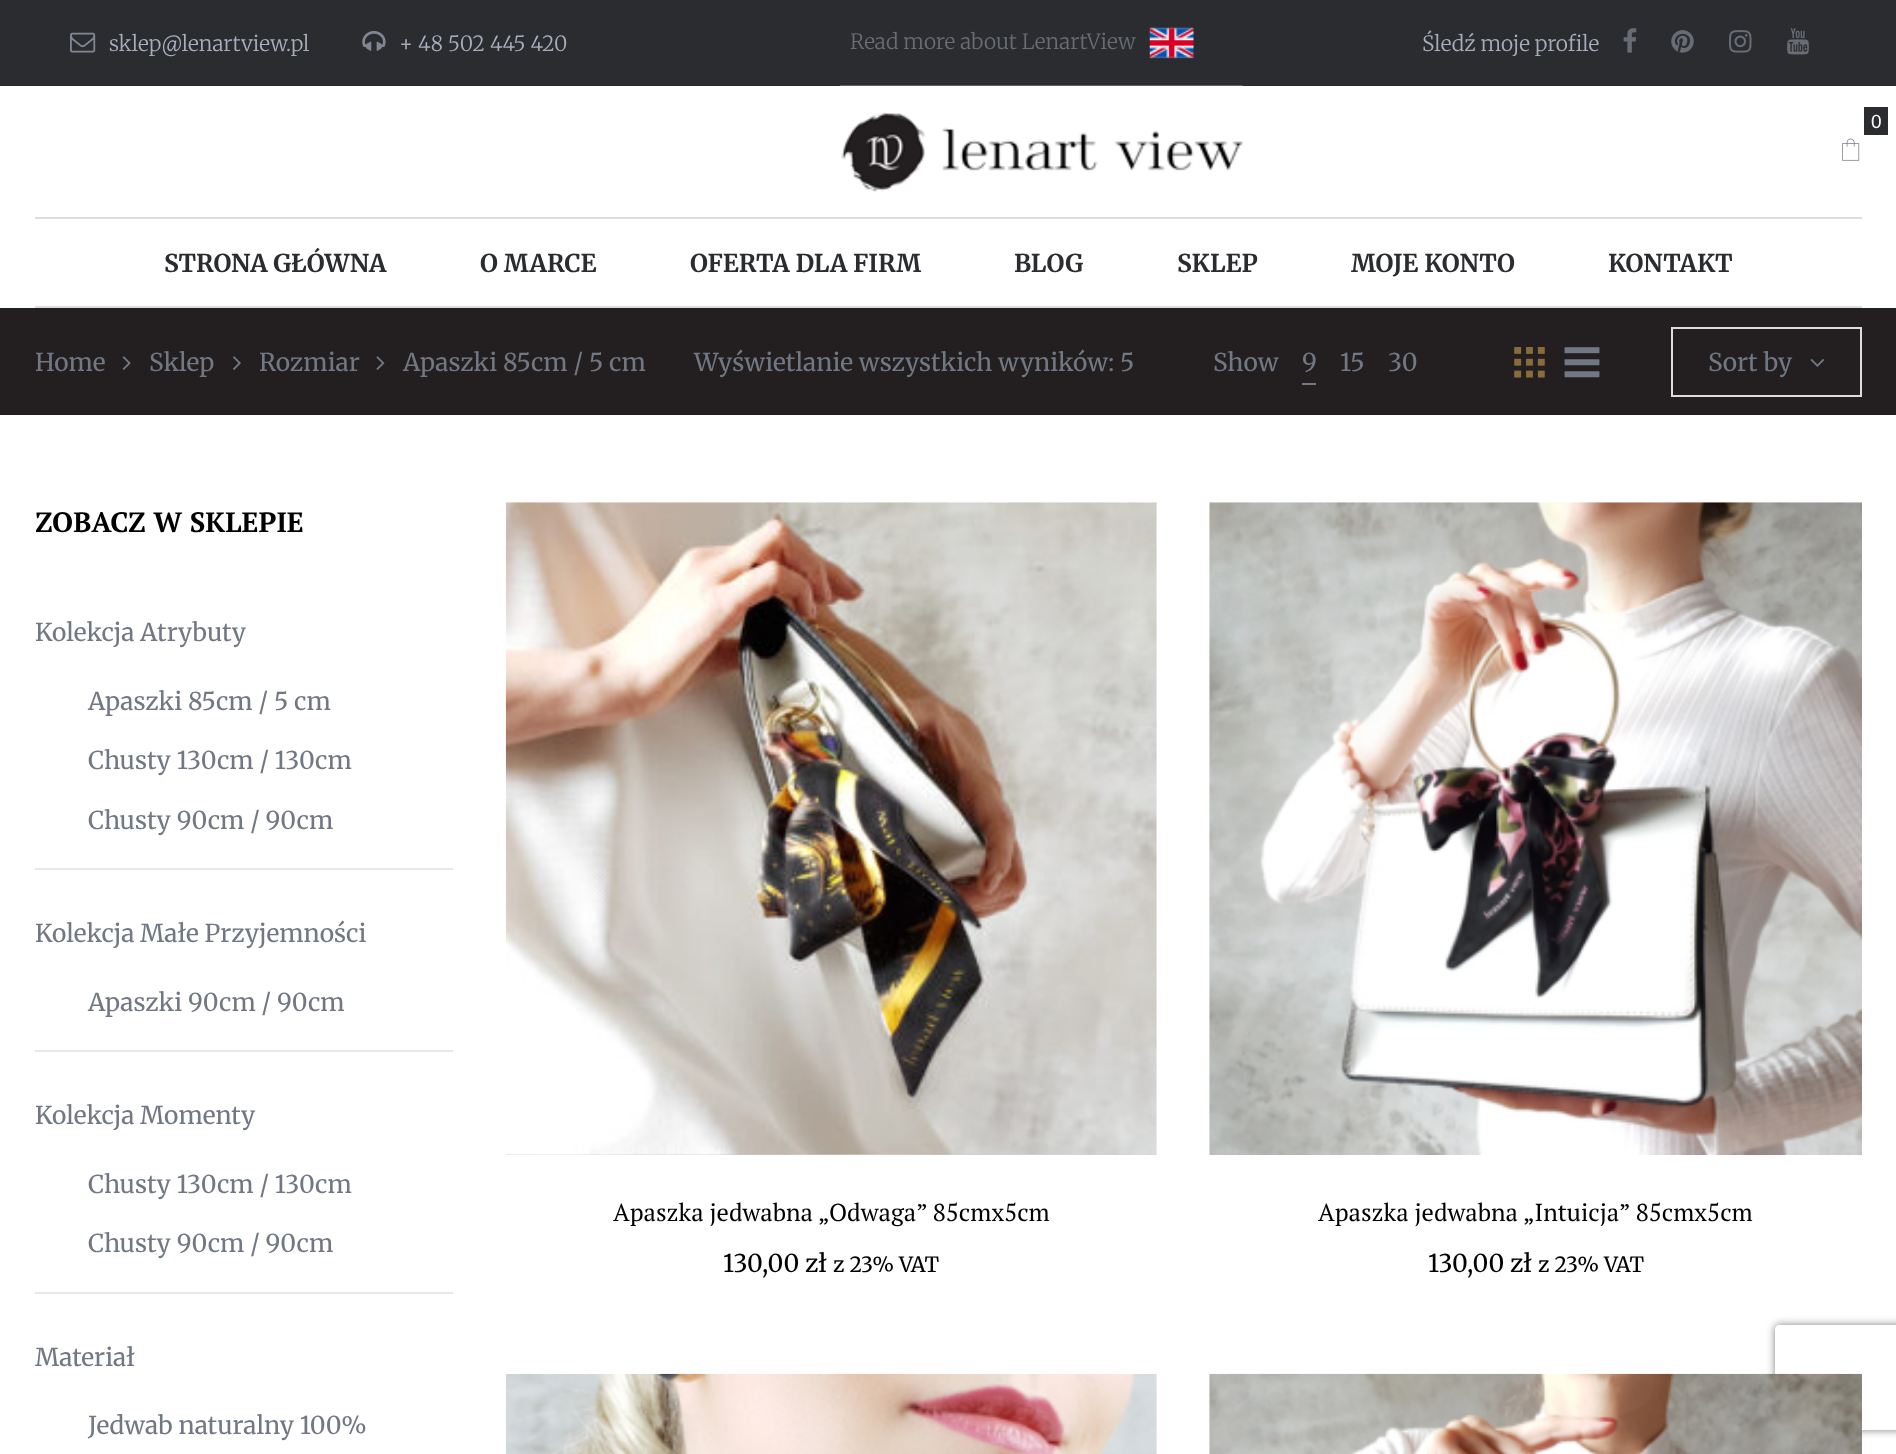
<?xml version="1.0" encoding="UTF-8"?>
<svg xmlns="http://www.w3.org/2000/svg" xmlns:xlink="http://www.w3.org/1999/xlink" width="1896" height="1454">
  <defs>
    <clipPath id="clip1"><path d="M 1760 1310 h 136 v 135 h -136 z m 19 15 h 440 c 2 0 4 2 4 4 v 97 c 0 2 -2 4 -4 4 h -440 c -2 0 -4 -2 -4 -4 v -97 c 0 -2 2 -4 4 -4 z" clip-rule="evenodd" /></clipPath>
  </defs>
  <rect width="100%" height="100%" fill="#ffffff" />
  <rect width="1896" height="86" fill="#2b2c30" />
  <image x="70" y="32" width="26" height="21" xlink:href="image1.png" />
  <image x="362" y="31" width="24" height="20" xlink:href="image2.png" />
  <image x="1149" y="27" width="45" height="32" xlink:href="image3.png" />
  <image x="1623" y="28" width="14" height="25" xlink:href="image4.png" />
  <image x="1671" y="30" width="23" height="23" xlink:href="image5.png" />
  <image x="1729" y="30" width="23" height="23" xlink:href="image6.png" />
  <image x="1787" y="28" width="22" height="27" xlink:href="image7.png" />
  <image x="840" y="85" width="403" height="107" xlink:href="image8.png" />
  <rect x="1864" y="107" width="24" height="28" fill="#2b2c30" />
  <image x="1842" y="138" width="18" height="23" xlink:href="image9.png" />
  <rect x="35" y="217" width="1827" height="2" fill="#dddddd" />
  <rect x="35" y="306" width="1827" height="2" fill="#dddddd" />
  <rect y="308" width="1896" height="107" fill="#231f20" />
  <image x="122" y="356" width="9" height="14" xlink:href="image10.png" />
  <image x="233" y="356" width="8" height="14" xlink:href="image11.png" />
  <image x="376" y="356" width="9" height="14" xlink:href="image12.png" />
  <rect x="1302" y="383" width="14" height="2" fill="#727883" />
  <image x="1514" y="347" width="31" height="31" xlink:href="image13.png" />
  <image x="1564" y="347" width="36" height="31" xlink:href="image14.png" />
  <rect x="1672" y="328" width="189" height="68" fill="none" stroke="#dddddd" stroke-width="2" />
  <image x="1810" y="359" width="15" height="8" xlink:href="image15.png" />
  <rect x="35" y="868" width="418" height="2" fill="#e5e7eb" />
  <rect x="35" y="1050" width="418" height="2" fill="#e5e7eb" />
  <rect x="35" y="1292" width="418" height="2" fill="#e5e7eb" />
  <image x="505" y="502" width="652" height="653" xlink:href="image16.png" />
  <image x="506" y="1154" width="651" height="1" xlink:href="image17.png" />
  <image x="1209" y="502" width="653" height="653" xlink:href="image18.png" />
  <image x="506" y="1373" width="651" height="81" xlink:href="image19.png" />
  <g clip-path="url(#clip1)">
    <rect x="1775" y="1325" width="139" height="105" rx="4" fill="#808080" filter="blur(4.5px)" />
  </g>
  <image x="1209" y="1373" width="653" height="81" xlink:href="image20.png" />
  <text x="109" y="51" style="font-family: Merriweather; font-size: 21px; font-weight: 300; fill: #a9aebd">sklep@lenartview.pl</text>
  <text x="399" y="51" style="font-family: Merriweather; font-size: 21px; font-weight: 300; fill: #a9aebd">+ 48 502 445 420</text>
  <text x="850" y="49" style="font-family: Merriweather; font-size: 21px; font-weight: 300; fill: #696c75">Read more about LenartView</text>
  <text x="1422" y="51" style="font-family: Merriweather; font-size: 21px; font-weight: 300; fill: #a9aebd">Śledź moje profile</text>
  <text x="1871" y="128" style="font-family: Liberation Sans; font-size: 19px; fill: #ffffff">0</text>
  <text x="164" y="272" style="font-family: Merriweather; font-size: 24.5px; font-weight: bold; fill: #2b2c30">STRONA GŁÓWNA</text>
  <text x="480" y="272" style="font-family: Merriweather; font-size: 24.5px; font-weight: bold; fill: #2b2c30">O MARCE</text>
  <text x="690" y="272" style="font-family: Merriweather; font-size: 24.5px; font-weight: bold; fill: #2b2c30">OFERTA DLA FIRM</text>
  <text x="1014" y="272" style="font-family: Merriweather; font-size: 24.5px; font-weight: bold; fill: #2b2c30">BLOG</text>
  <text x="1177" y="272" style="font-family: Merriweather; font-size: 24.5px; font-weight: bold; fill: #2b2c30">SKLEP</text>
  <text x="1351" y="272" style="font-family: Merriweather; font-size: 24.5px; font-weight: bold; fill: #2b2c30">MOJE KONTO</text>
  <text x="1608" y="272" style="font-family: Merriweather; font-size: 24.5px; font-weight: bold; fill: #2b2c30">KONTAKT</text>
  <text x="35" y="371" style="font-family: Merriweather; font-size: 24.5px; fill: #727883">Home</text>
  <text x="149" y="371" style="font-family: Merriweather; font-size: 24.5px; fill: #727883">Sklep</text>
  <text x="259" y="371" style="font-family: Merriweather; font-size: 24.5px; fill: #727883">Rozmiar</text>
  <text x="403" y="371" style="font-family: Merriweather; font-size: 24.5px; fill: #727883">Apaszki 85cm / 5 cm</text>
  <text x="694" y="371" style="font-family: Merriweather; font-size: 24.5px; fill: #727883">Wyświetlanie wszystkich wyników: 5</text>
  <text x="1213" y="371" style="font-family: Merriweather; font-size: 24.5px; fill: #727883">Show</text>
  <text x="1302" y="371" style="font-family: Merriweather; font-size: 24.5px; fill: #727883">9</text>
  <text x="1340" y="371" style="font-family: Merriweather; font-size: 24.5px; fill: #727883">15</text>
  <text x="1388" y="371" style="font-family: Merriweather; font-size: 24.5px; fill: #727883">30</text>
  <text x="1708" y="371" style="font-family: Merriweather; font-size: 24.5px; fill: #727883">Sort by</text>
  <text x="35" y="532" style="font-family: PT Serif; font-size: 28px; font-weight: bold; fill: #000000">ZOBACZ W SKLEPIE</text>
  <text x="35" y="641" style="font-family: Merriweather; font-size: 24.5px; fill: #727883">Kolekcja Atrybuty</text>
  <text x="88" y="710" style="font-family: Merriweather; font-size: 24.5px; fill: #727883">Apaszki 85cm / 5 cm</text>
  <text x="88" y="769" style="font-family: Merriweather; font-size: 24.5px; fill: #727883">Chusty 130cm / 130cm</text>
  <text x="88" y="829" style="font-family: Merriweather; font-size: 24.5px; fill: #727883">Chusty 90cm / 90cm</text>
  <text x="35" y="942" style="font-family: Merriweather; font-size: 24.5px; fill: #727883">Kolekcja Małe Przyjemności</text>
  <text x="88" y="1011" style="font-family: Merriweather; font-size: 24.5px; fill: #727883">Apaszki 90cm / 90cm</text>
  <text x="35" y="1124" style="font-family: Merriweather; font-size: 24.5px; fill: #727883">Kolekcja Momenty</text>
  <text x="88" y="1193" style="font-family: Merriweather; font-size: 24.5px; fill: #727883">Chusty 130cm / 130cm</text>
  <text x="88" y="1252" style="font-family: Merriweather; font-size: 24.5px; fill: #727883">Chusty 90cm / 90cm</text>
  <text x="35" y="1366" style="font-family: Merriweather; font-size: 24.5px; fill: #727883">Materiał</text>
  <text x="88" y="1434" style="font-family: Merriweather; font-size: 24.5px; fill: #727883">Jedwab naturalny 100%</text>
  <text x="613" y="1221" style="font-family: PT Serif; font-size: 24.5px; fill: #000000">Apaszka jedwabna „Odwaga” 85cmx5cm</text>
  <text x="723" y="1272" style="font-family: Merriweather; font-size: 24.5px; fill: #000000">130,00 zł</text>
  <text x="833" y="1272" style="font-family: Merriweather; font-size: 21px; fill: #000000">z 23% VAT</text>
  <text x="1318" y="1221" style="font-family: PT Serif; font-size: 24.5px; fill: #000000">Apaszka jedwabna „Intuicja” 85cmx5cm</text>
  <text x="1428" y="1272" style="font-family: Merriweather; font-size: 24.5px; fill: #000000">130,00 zł</text>
  <text x="1538" y="1272" style="font-family: Merriweather; font-size: 21px; fill: #000000">z 23% VAT</text>
</svg>
